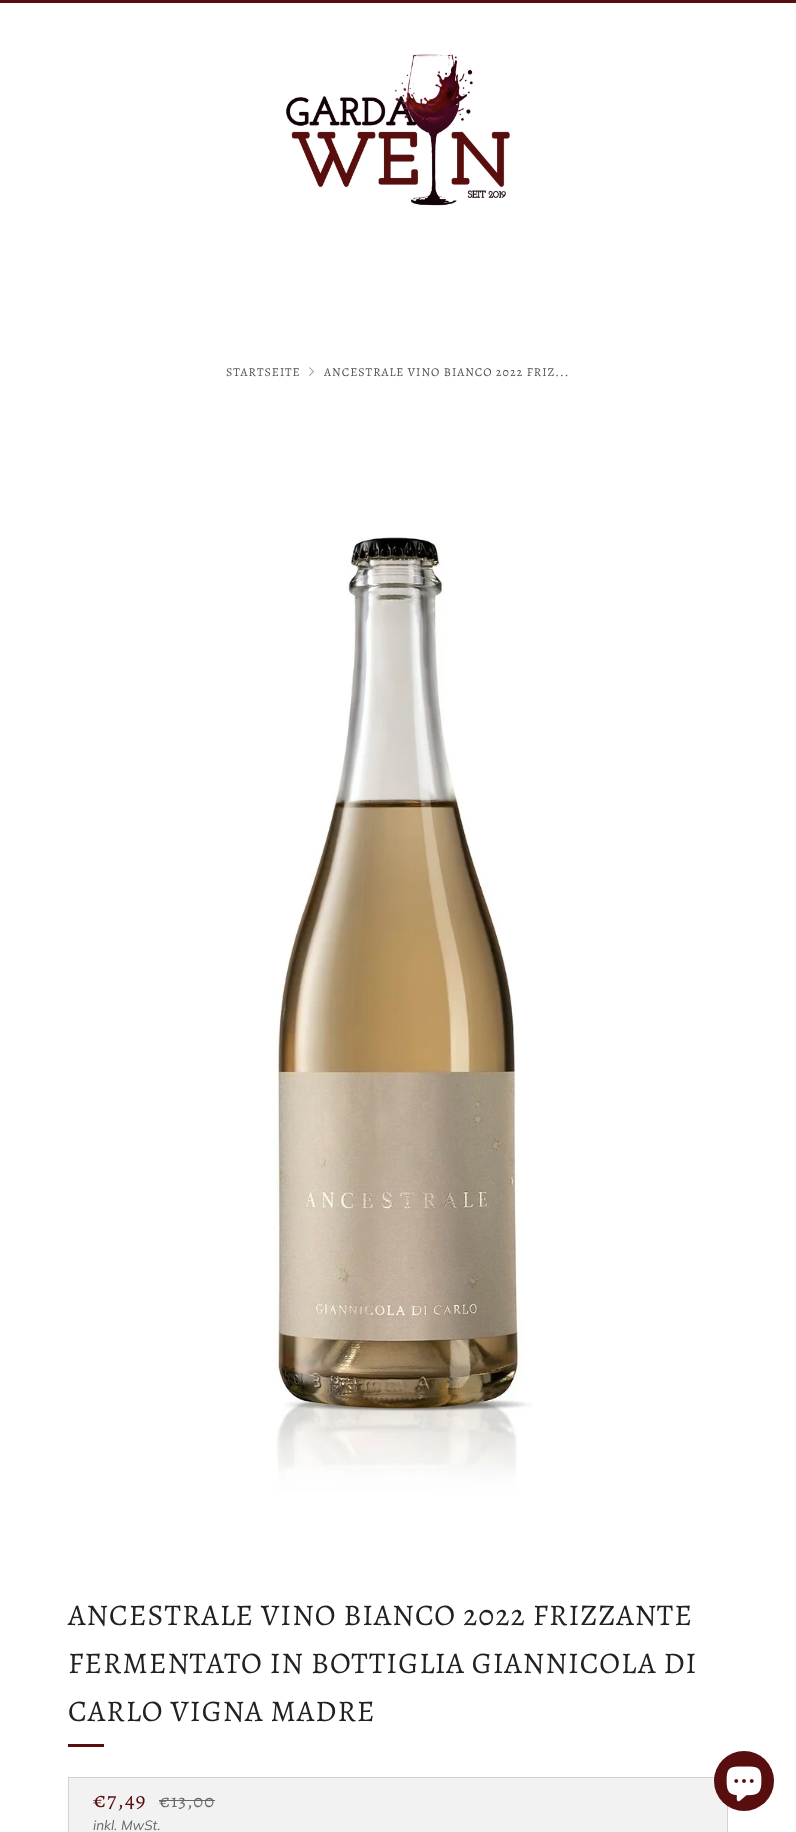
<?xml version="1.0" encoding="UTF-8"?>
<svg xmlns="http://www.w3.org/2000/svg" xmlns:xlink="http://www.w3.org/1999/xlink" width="796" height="1832">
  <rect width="100%" height="100%" fill="#ffffff" />
  <rect width="796" height="3" fill="#580e0e" />
  <image x="285" y="54" width="225" height="152" xlink:href="image1.png" />
  <image x="309" y="367" width="5" height="9" xlink:href="image2.png" />
  <image x="18" y="403" width="760" height="1140" xlink:href="image3.png" />
  <rect x="68" y="1744" width="36" height="3" fill="#580e0e" />
  <rect x="68.5" y="1777.5" width="659" height="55" fill="none" stroke="#d3d3d3" />
  <rect x="69" y="1778" width="658" height="54" fill="#f2f2f2" />
  <rect x="159" y="1800" width="56" height="1" fill="#666666" />
  <circle cx="744" cy="1781" r="30" fill="#580e0e" />
  <image x="726" y="1766" width="36" height="36" xlink:href="image4.png" />
  <text x="226" y="376" style="font-family: Alegreya; font-size: 12px; letter-spacing: 1px; fill: #4d4d4d">STARTSEITE</text>
  <text x="324" y="376" style="font-family: Alegreya; font-size: 12px; letter-spacing: 1px; fill: #4d4d4d">ANCESTRALE VINO BIANCO 2022 FRIZ...</text>
  <text x="68" y="1625" style="font-family: Alegreya; font-size: 30px; letter-spacing: 1px; fill: #212121">ANCESTRALE VINO BIANCO 2022 FRIZZANTE</text>
  <text x="68" y="1673" style="font-family: Alegreya; font-size: 30px; letter-spacing: 1px; fill: #212121">FERMENTATO IN BOTTIGLIA GIANNICOLA DI</text>
  <text x="68" y="1721" style="font-family: Alegreya; font-size: 30px; letter-spacing: 1px; fill: #212121">CARLO VIGNA MADRE</text>
  <text x="93" y="1807" style="font-family: Alegreya; font-size: 22px; letter-spacing: 1px; fill: #580e0e">€7,49</text>
  <text x="159" y="1807" style="font-family: Alegreya; font-size: 18.5px; letter-spacing: 1px; fill: #666666">€13,00</text>
  <text x="93" y="1830" style="font-family: Muli; font-size: 13.5px; font-style: italic; fill: #666666">inkl. MwSt.</text>
</svg>
